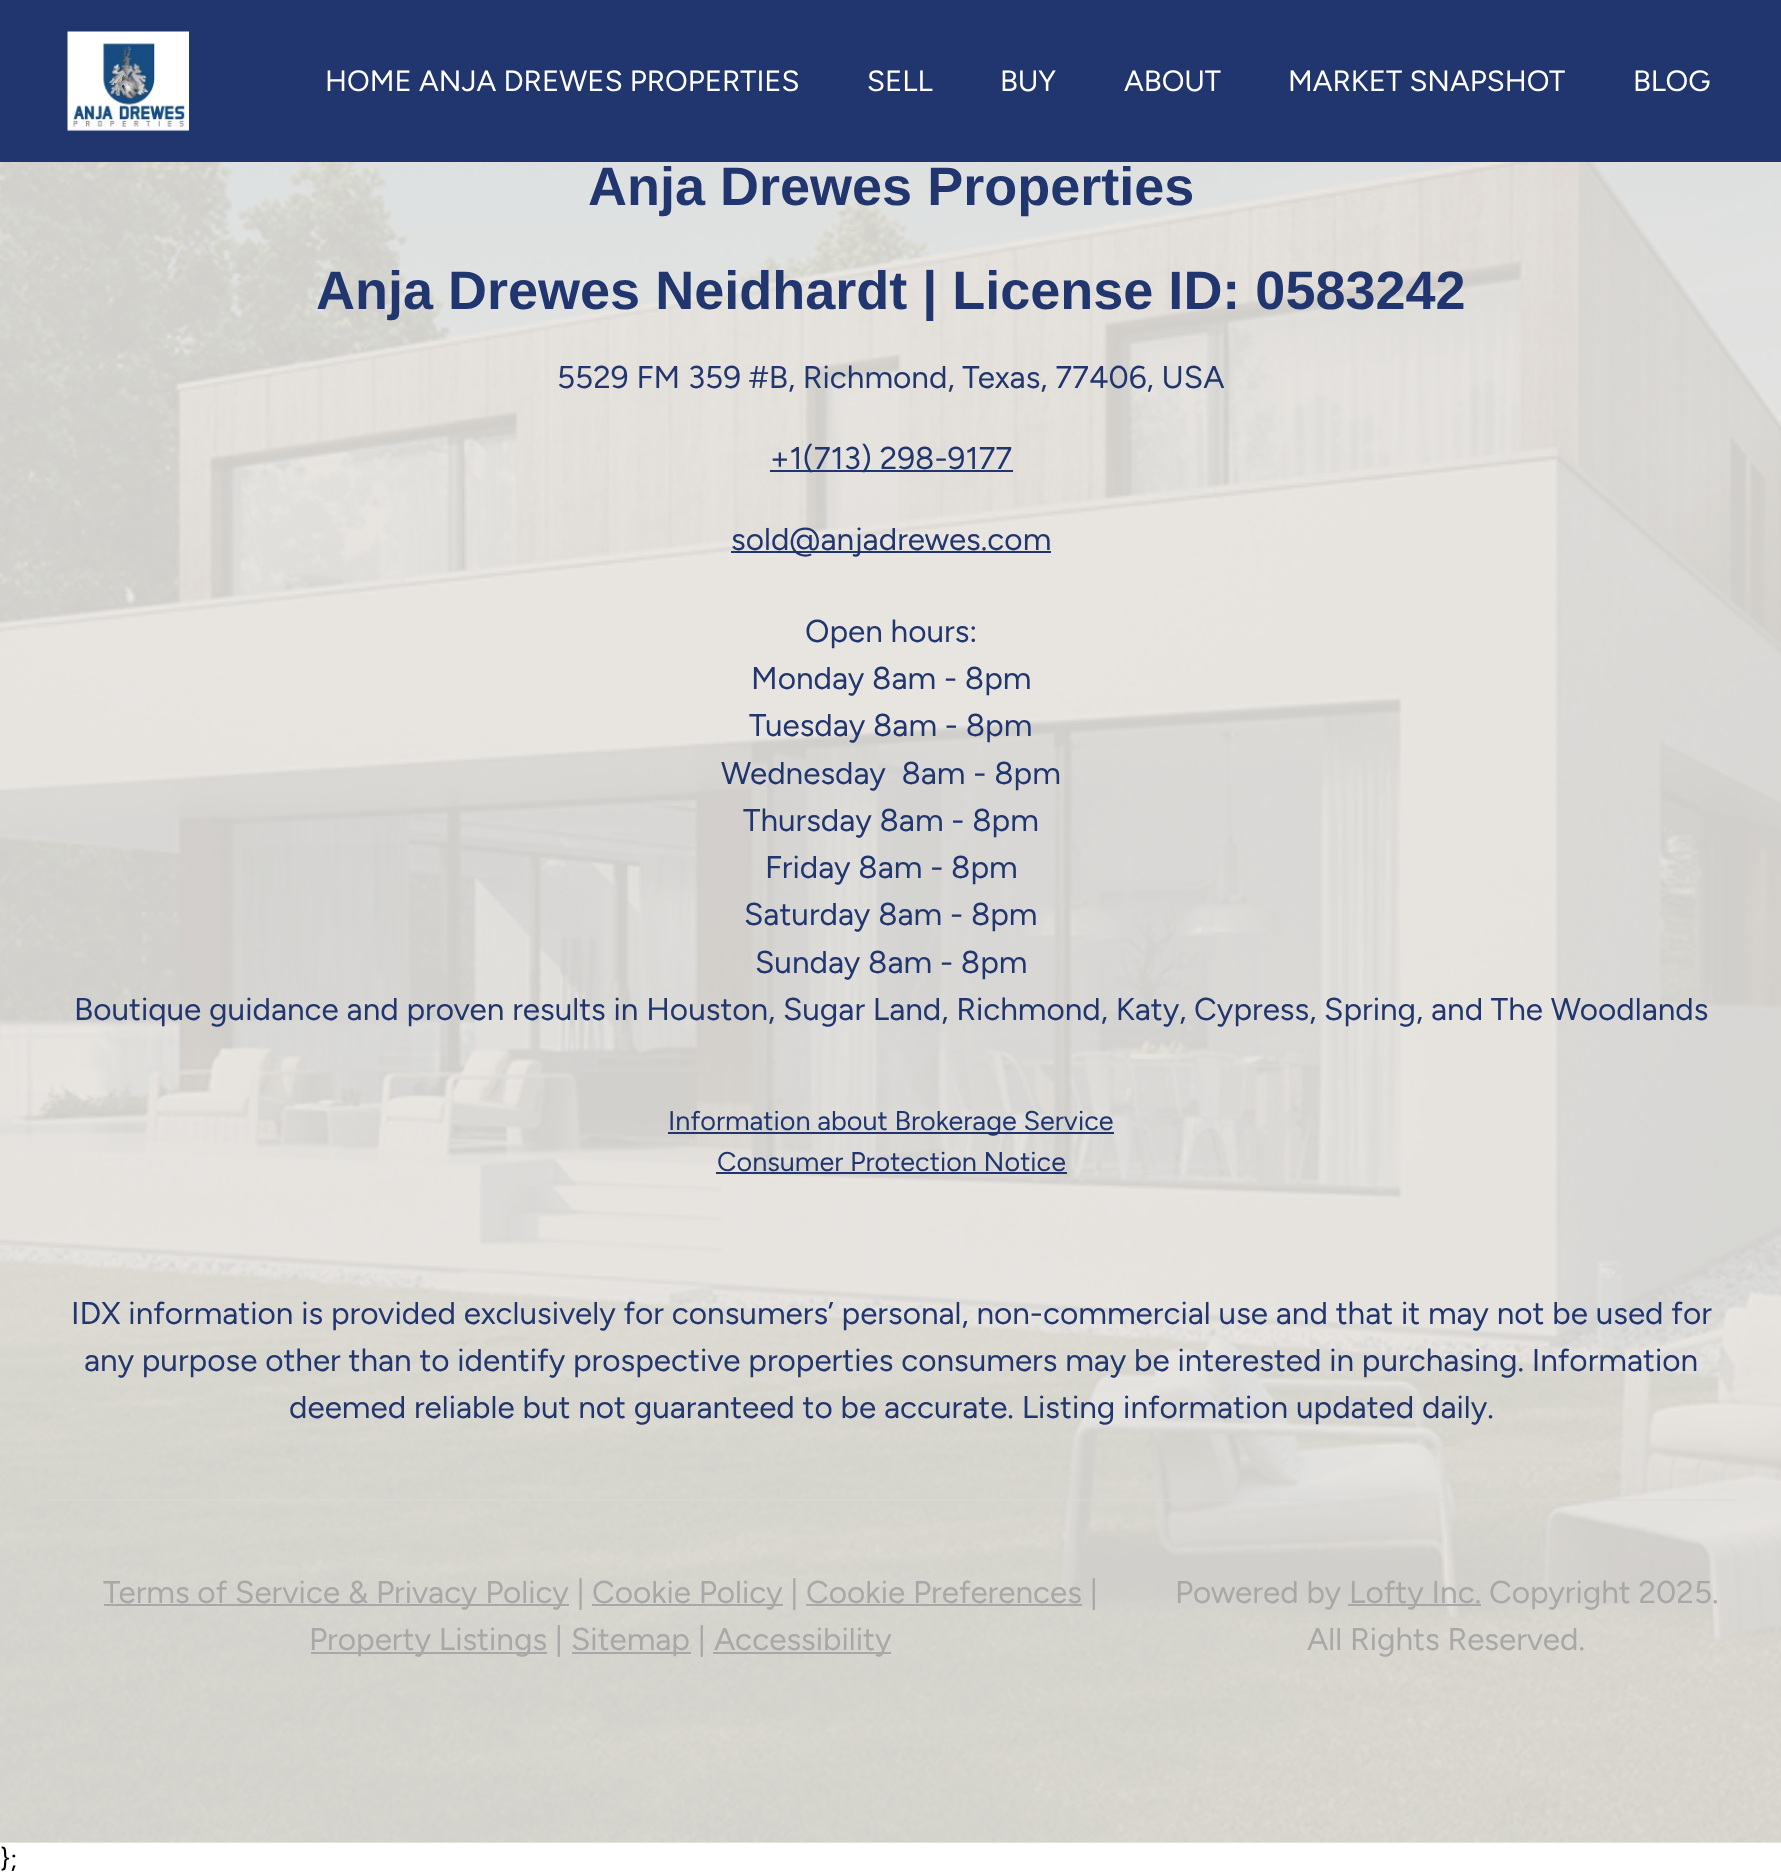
<?xml version="1.0" encoding="UTF-8"?>
<svg xmlns="http://www.w3.org/2000/svg" xmlns:xlink="http://www.w3.org/1999/xlink" width="1781" height="1873">
  <rect width="100%" height="100%" fill="#ffffff" />
  <rect y="1842" width="1781" height="1" fill="#eae8e4" />
  <rect width="1781" height="162" fill="#21356e" />
  <image x="67" y="31" width="122" height="100" xlink:href="image1.png" />
  <image x="0" y="162" width="1781" height="1681" xlink:href="image2.png" />
  <rect x="770" y="470" width="243" height="2" fill="#21356e" />
  <rect x="731" y="551" width="320" height="2" fill="#21356e" />
  <rect x="668" y="1132" width="446" height="2" fill="#21356e" />
  <rect x="716" y="1172" width="351" height="2" fill="#21356e" />
  <rect x="45" y="1499" width="1692" height="2" fill="#dadada" fill-opacity="0.5" />
  <rect x="104" y="1604" width="465" height="2" fill="#a8a8a8" />
  <rect x="592" y="1604" width="191" height="2" fill="#a8a8a8" />
  <rect x="806" y="1604" width="276" height="2" fill="#a8a8a8" />
  <rect x="311" y="1652" width="236" height="2" fill="#a8a8a8" />
  <rect x="572" y="1652" width="119" height="2" fill="#a8a8a8" />
  <rect x="713" y="1652" width="178" height="2" fill="#a8a8a8" />
  <rect x="1348" y="1604" width="133" height="2" fill="#a8a8a8" />
  <text x="325" y="91" style="font-family: Figtree; font-size: 29.25px; fill: #ffffff">HOME ANJA DREWES PROPERTIES</text>
  <text x="867" y="91" style="font-family: Figtree; font-size: 29.25px; fill: #ffffff">SELL</text>
  <text x="1000" y="91" style="font-family: Figtree; font-size: 29.25px; fill: #ffffff">BUY</text>
  <text x="1124" y="91" style="font-family: Figtree; font-size: 29.25px; fill: #ffffff">ABOUT</text>
  <text x="1288" y="91" style="font-family: Figtree; font-size: 29.25px; fill: #ffffff">MARKET SNAPSHOT</text>
  <text x="1633" y="91" style="font-family: Figtree; font-size: 29.25px; fill: #ffffff">BLOG</text>
  <text x="588" y="205" style="font-family: Arimo; font-size: 54px; font-weight: bold; fill: #21356e">Anja Drewes Properties</text>
  <text x="316" y="309" style="font-family: Arimo; font-size: 54px; font-weight: bold; fill: #21356e">Anja Drewes Neidhardt | License ID: 0583242</text>
  <text x="557" y="388" style="font-family: Figtree; font-size: 31.5px; fill: #21356e">5529 FM 359 #B, Richmond, Texas, 77406, USA</text>
  <text x="770" y="469" style="font-family: Figtree; font-size: 31.5px; fill: #21356e">+1(713) 298-9177</text>
  <text x="731" y="550" style="font-family: Figtree; font-size: 31.5px; fill: #21356e">sold@anjadrewes.com</text>
  <text x="805" y="642" style="font-family: Figtree; font-size: 31.5px; fill: #21356e">Open hours:</text>
  <text x="751" y="689" style="font-family: Figtree; font-size: 31.5px; fill: #21356e">Monday 8am - 8pm</text>
  <text x="749" y="736" style="font-family: Figtree; font-size: 31.5px; fill: #21356e">Tuesday 8am - 8pm</text>
  <text x="721" y="784" style="font-family: Figtree; font-size: 31.5px; fill: #21356e" xml:space="preserve">Wednesday  8am - 8pm</text>
  <text x="743" y="831" style="font-family: Figtree; font-size: 31.5px; fill: #21356e">Thursday 8am - 8pm</text>
  <text x="765" y="878" style="font-family: Figtree; font-size: 31.5px; fill: #21356e">Friday 8am - 8pm</text>
  <text x="744" y="925" style="font-family: Figtree; font-size: 31.5px; fill: #21356e">Saturday 8am - 8pm</text>
  <text x="755" y="973" style="font-family: Figtree; font-size: 31.5px; fill: #21356e">Sunday 8am - 8pm</text>
  <text x="74" y="1020" style="font-family: Figtree; font-size: 31.5px; fill: #21356e">Boutique guidance and proven results in Houston, Sugar Land, Richmond, Katy, Cypress, Spring, and The Woodlands</text>
  <text x="668" y="1130" style="font-family: Figtree; font-size: 27px; fill: #21356e">Information about Brokerage Service</text>
  <text x="717" y="1171" style="font-family: Figtree; font-size: 27px; fill: #21356e">Consumer Protection Notice</text>
  <text x="71" y="1324" style="font-family: Figtree; font-size: 31.5px; fill: #21356e">IDX information is provided exclusively for consumers’ personal, non-commercial use and that it may not be used for</text>
  <text x="84" y="1371" style="font-family: Figtree; font-size: 31.5px; fill: #21356e">any purpose other than to identify prospective properties consumers may be interested in purchasing. Information</text>
  <text x="289" y="1418" style="font-family: Figtree; font-size: 31.5px; fill: #21356e">deemed reliable but not guaranteed to be accurate. Listing information updated daily.</text>
  <text x="103" y="1603" style="font-family: Figtree; font-size: 31.5px; fill: #a8a8a8">Terms of Service &amp; Privacy Policy |</text>
  <text x="592" y="1603" style="font-family: Figtree; font-size: 31.5px; fill: #a8a8a8">Cookie Policy | Cookie Preferences |</text>
  <text x="309" y="1650" style="font-family: Figtree; font-size: 31.5px; fill: #a8a8a8">Property Listings |</text>
  <text x="571" y="1650" style="font-family: Figtree; font-size: 31.5px; fill: #a8a8a8">Sitemap |</text>
  <text x="714" y="1650" style="font-family: Figtree; font-size: 31.5px; fill: #a8a8a8">Accessibility</text>
  <text x="1175" y="1603" style="font-family: Figtree; font-size: 31.5px; fill: #a8a8a8">Powered by</text>
  <text x="1349" y="1603" style="font-family: Figtree; font-size: 31.5px; fill: #a8a8a8">Lofty Inc. Copyright 2025.</text>
  <text x="1307" y="1650" style="font-family: Figtree; font-size: 31.5px; fill: #a8a8a8">All Rights Reserved.</text>
  <text x="0" y="1868" style="font-family: Figtree; font-size: 27px; fill: #000000">};</text>
</svg>
